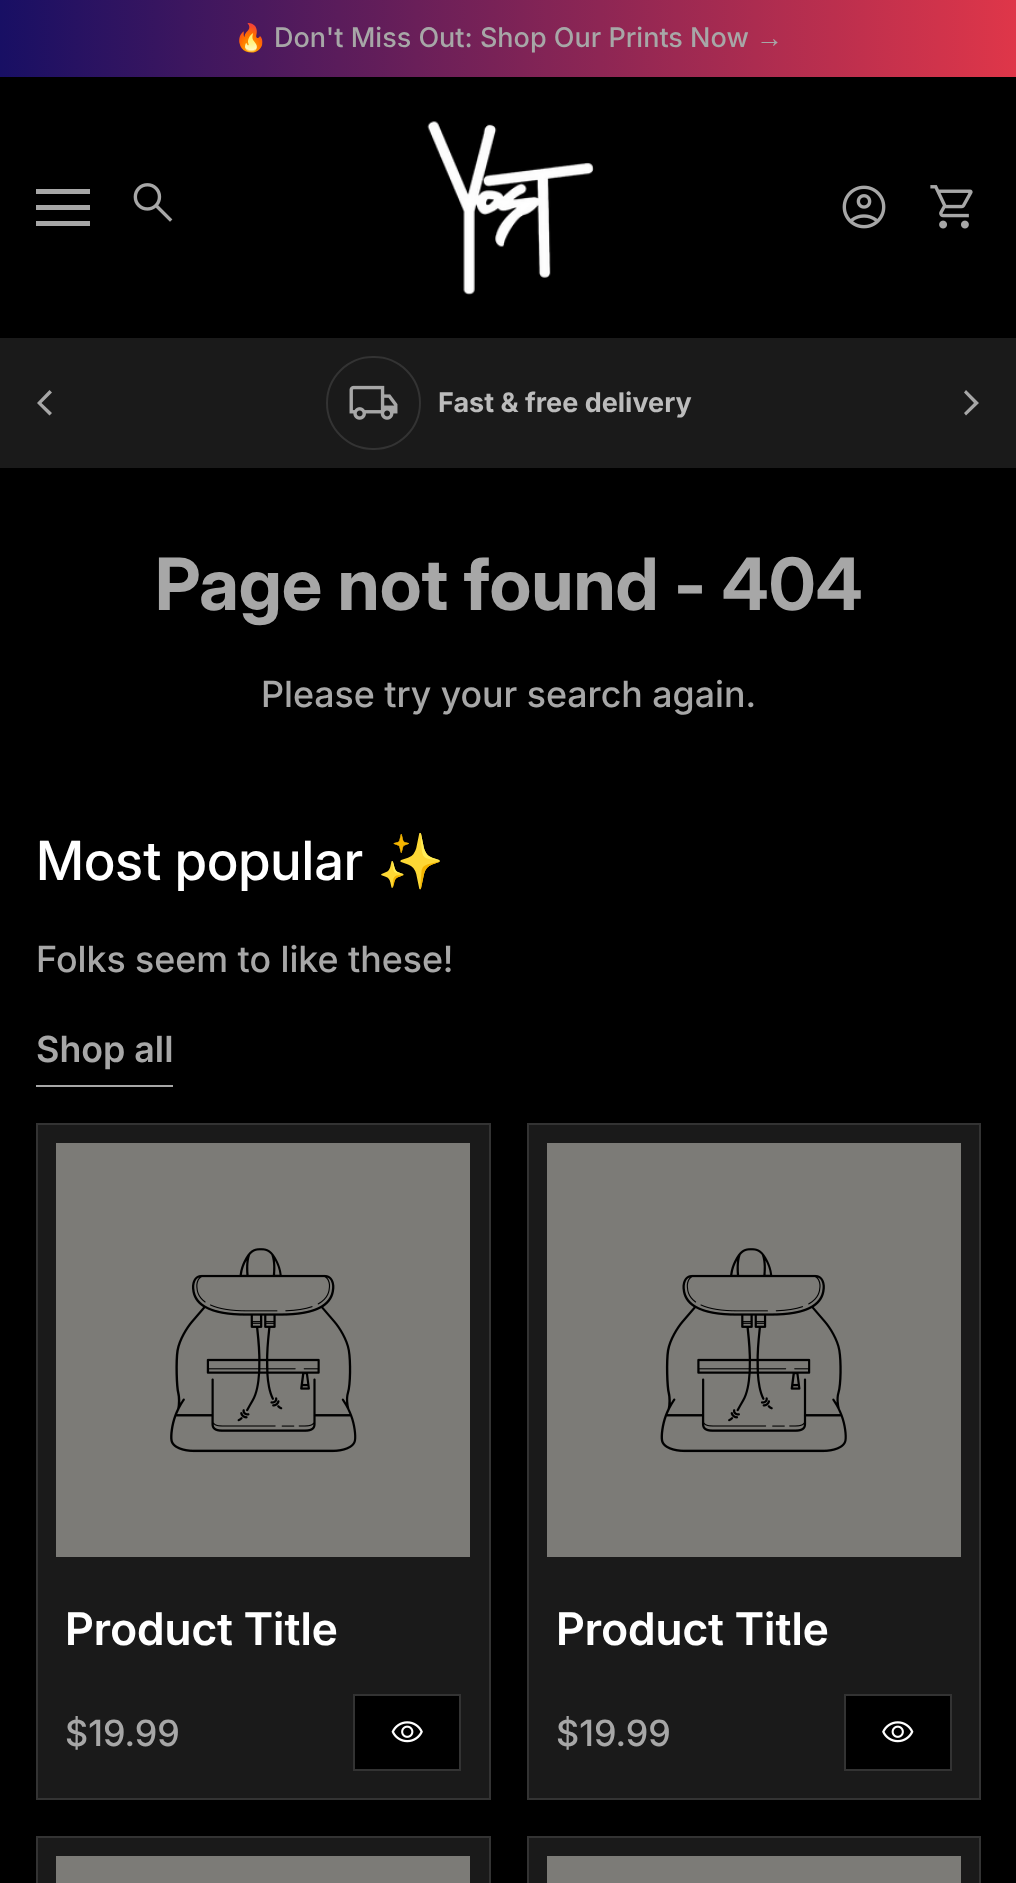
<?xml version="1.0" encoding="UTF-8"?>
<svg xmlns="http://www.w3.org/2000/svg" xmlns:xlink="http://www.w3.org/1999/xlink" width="1016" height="1883">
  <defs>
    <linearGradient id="g1" gradientUnits="userSpaceOnUse" x1="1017" y1="38" x2="0" y2="38"><stop offset="0" stop-color="#df3649" /><stop offset="1" stop-color="#180f64" /></linearGradient>
  </defs>
  <rect width="100%" height="100%" fill="#000000" />
  <rect width="1016" height="77" fill="url(#g1)" />
  <rect x="36" y="189" width="54" height="5" fill="#a7a7a7" />
  <rect x="36" y="205" width="54" height="5" fill="#a7a7a7" />
  <rect x="36" y="221" width="54" height="5" fill="#a7a7a7" />
  <image x="133" y="183" width="40" height="39" xlink:href="image1.png" />
  <image x="427" y="121" width="167" height="174" xlink:href="image2.png" />
  <image x="842" y="185" width="44" height="44" xlink:href="image3.png" />
  <image x="930" y="185" width="43" height="44" xlink:href="image4.png" />
  <rect y="338" width="1016" height="130" fill="#1a1a1a" />
  <path d="M 49.5 415.5 l -12.5 -12.5 l 12.5 -13 l 2.5 2.5 l -10.5 10.5 l 10.5 10 z" fill="#a7a7a7" />
  <rect x="327" y="357" width="93" height="92" rx="46" fill="none" stroke="#333333" stroke-width="2" />
  <image x="349" y="385" width="49" height="35" xlink:href="image5.png" />
  <path d="M 974 403 l -10 -10.5 l 2 -2.5 l 13 13 l -13 12.5 l -2 -2.5 z" fill="#a7a7a7" />
  <rect x="36" y="1085" width="137" height="2" fill="#a7a7a7" />
  <rect x="37" y="1124" width="453" height="675" fill="#1a1a1a" stroke="#333333" stroke-width="2" />
  <rect x="56" y="1143" width="414" height="414" fill="#7c7b77" />
  <image x="170" y="1248" width="187" height="205" xlink:href="image6.png" />
  <rect x="354" y="1695" width="106" height="75" fill="#000000" stroke="#333333" stroke-width="2" />
  <image x="391" y="1721" width="32" height="22" xlink:href="image7.png" />
  <rect x="528" y="1124" width="452" height="675" fill="#1a1a1a" stroke="#333333" stroke-width="2" />
  <rect x="547" y="1143" width="414" height="414" fill="#7c7b77" />
  <image x="660" y="1248" width="187" height="205" xlink:href="image8.png" />
  <rect x="845" y="1695" width="106" height="75" fill="#000000" stroke="#333333" stroke-width="2" />
  <image x="882" y="1721" width="32" height="22" xlink:href="image9.png" />
  <rect x="37" y="1837" width="453" height="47" fill="#1a1a1a" stroke="#333333" stroke-width="2" />
  <rect x="56" y="1856" width="414" height="27" fill="#7c7b77" />
  <rect x="528" y="1837" width="452" height="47" fill="#1a1a1a" stroke="#333333" stroke-width="2" />
  <rect x="547" y="1856" width="414" height="27" fill="#7c7b77" />
  <text x="234" y="47" style="font-family: 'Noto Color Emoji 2'; font-size: 27px; fill: #a7a7a7">🔥</text>
  <text x="274" y="47" style="font-family: 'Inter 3'; font-size: 27px; font-weight: 500; fill: #a7a7a7">Don't Miss Out: Shop Our Prints Now</text>
  <text x="756" y="47" style="font-family: Liberation Sans; font-size: 27px; fill: #a7a7a7">→</text>
  <text x="438" y="412" style="font-family: 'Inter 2'; font-size: 27px; font-weight: bold; fill: #bcbcbc">Fast &amp; free delivery</text>
  <text x="155" y="610" style="font-family: Inter; font-size: 72px; font-weight: bold; fill: #a7a7a7">Page not found - 404</text>
  <text x="261" y="707" style="font-family: Inter; font-size: 36px; font-weight: 500; fill: #a7a7a7">Please try your search again.</text>
  <text x="36" y="880" style="font-family: 'Inter 2'; font-size: 54px; font-weight: 500; fill: #ffffff">Most popular</text>
  <text x="377" y="880" style="font-family: Noto Color Emoji; font-size: 54px; fill: #ffffff">✨</text>
  <text x="36" y="972" style="font-family: Inter; font-size: 36px; font-weight: 500; fill: #a7a7a7">Folks seem to like these!</text>
  <text x="36" y="1062" style="font-family: Inter; font-size: 36px; font-weight: 600; fill: #a7a7a7">Shop all</text>
  <text x="65" y="1645" style="font-family: 'Inter 2'; font-size: 45px; font-weight: 600; fill: #ffffff">Product Title</text>
  <text x="65" y="1746" style="font-family: Inter; font-size: 36px; font-weight: 500; fill: #a7a7a7">$19.99</text>
  <text x="556" y="1645" style="font-family: 'Inter 2'; font-size: 45px; font-weight: 600; fill: #ffffff">Product Title</text>
  <text x="556" y="1746" style="font-family: Inter; font-size: 36px; font-weight: 500; fill: #a7a7a7">$19.99</text>
</svg>
